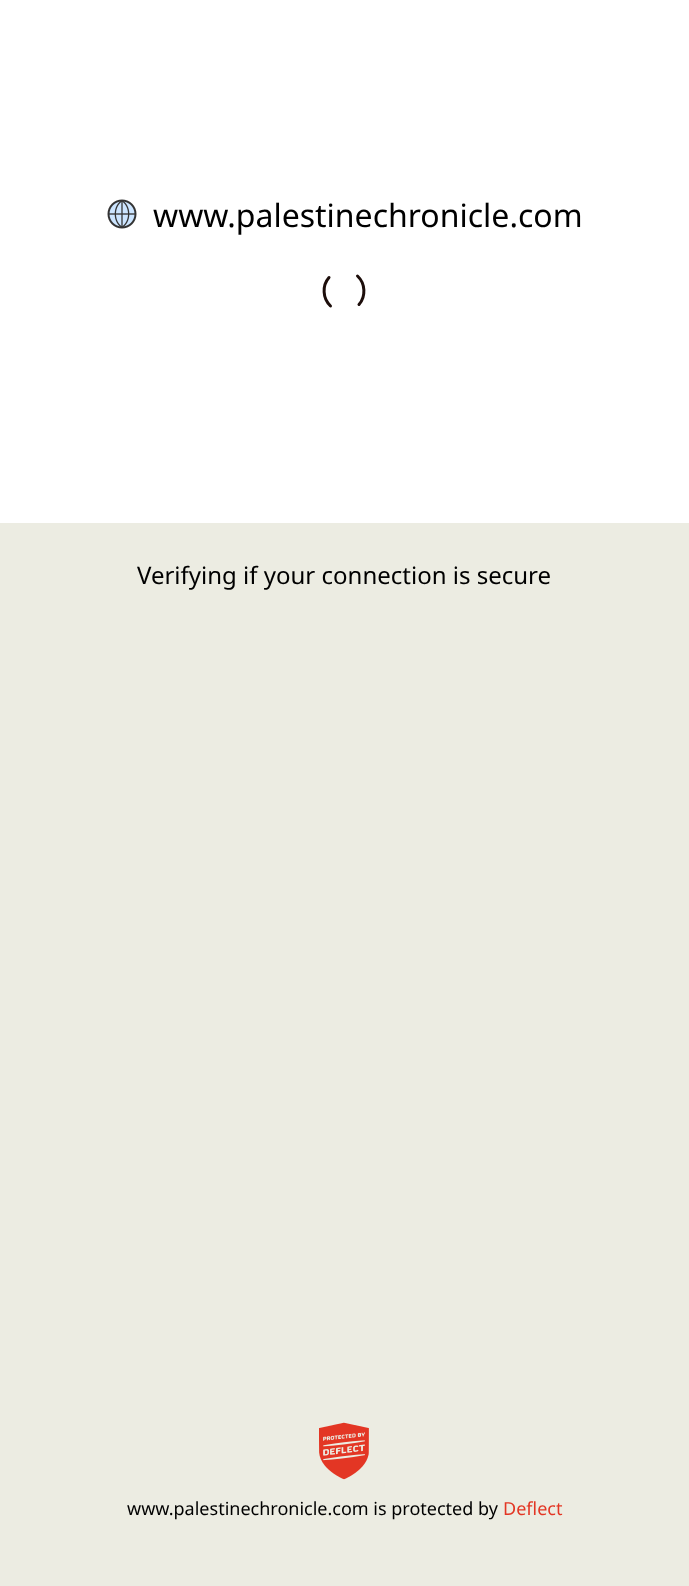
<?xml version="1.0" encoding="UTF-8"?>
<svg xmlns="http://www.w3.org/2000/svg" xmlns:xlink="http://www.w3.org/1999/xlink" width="689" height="1586">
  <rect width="100%" height="100%" fill="#ffffff" />
  <image x="107" y="199" width="30" height="30" xlink:href="image1.png" />
  <path d="M 357.5 276 c 8 7.5 8.5 20.5 1.5 28.5 m -28.5 1.5 c -8 -7.5 -8.5 -20.5 -1.5 -28.5" fill="none" stroke="#1d0e0b" stroke-width="3" stroke-linecap="round" />
  <rect y="523" width="689" height="1063" fill="#ecece2" />
  <image x="319" y="1422" width="50" height="58" xlink:href="image2.png" />
  <text x="153" y="227" style="font-family: Noto Sans; font-size: 32px; fill: #000000">www.palestinechronicle.com</text>
  <text x="137" y="584" style="font-family: Noto Sans; font-size: 24px; fill: #000000">Verifying if your connection is secure</text>
  <text x="127" y="1515" style="font-family: Noto Sans; font-size: 18px; fill: #000000">www.palestinechronicle.com is protected by</text>
  <text x="503" y="1515" style="font-family: Noto Sans; font-size: 18px; fill: #e33624">Deflect</text>
</svg>
